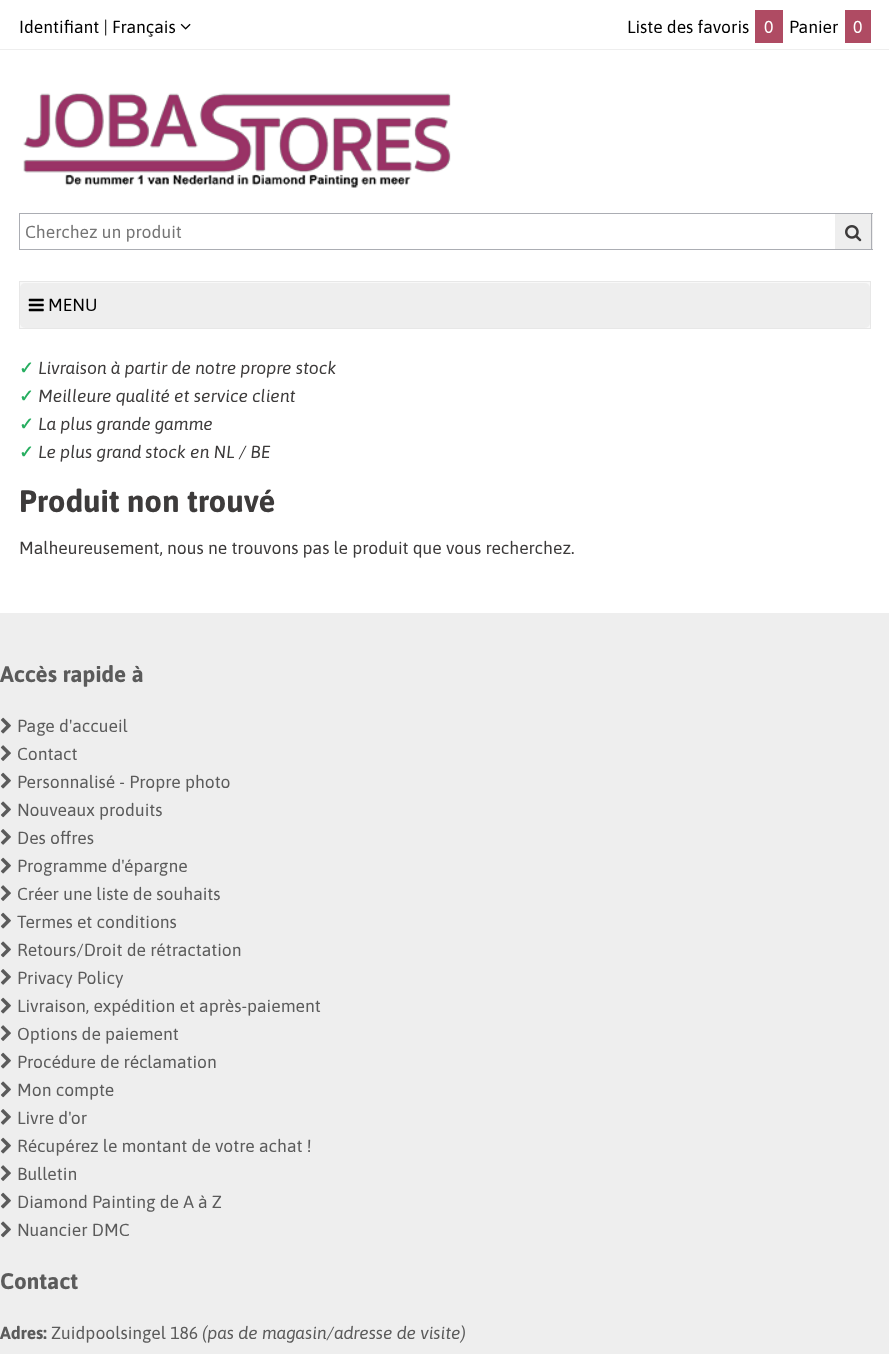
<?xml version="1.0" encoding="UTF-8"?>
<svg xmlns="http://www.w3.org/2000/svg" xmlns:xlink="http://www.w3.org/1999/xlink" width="889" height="1354">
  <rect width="100%" height="100%" fill="#ffffff" />
  <rect y="49" width="889" height="1" fill="#eeeeee" />
  <image x="180" y="23" width="11" height="7" xlink:href="image1.png" />
  <rect x="755" y="10" width="28" height="33" fill="#af4b63" />
  <rect x="845" y="10" width="26" height="33" fill="#af4b63" />
  <image x="23" y="93" width="428" height="95" xlink:href="image2.png" />
  <rect x="19.5" y="213.5" width="851" height="36" fill="none" stroke="#abadb3" />
  <rect x="835" y="214" width="38" height="35" fill="#eeeeee" />
  <rect x="871" y="213" width="2" height="1" fill="#abadb3" />
  <rect x="871" y="213" width="1" height="37" fill="#abadb3" />
  <rect x="872" y="249" width="1" height="1" fill="#abadb3" />
  <image x="845" y="225" width="17" height="17" xlink:href="image3.png" />
  <rect x="19.5" y="281.5" width="851" height="47" fill="#f8f8f8" stroke="#e7e7e7" />
  <rect x="20" y="283" width="850" height="45" rx="5" fill="#eeeeee" />
  <image x="28" y="298" width="16" height="14" xlink:href="image4.png" />
  <rect y="613" width="889" height="741" fill="#eeeeee" />
  <image x="0" y="717" width="11" height="17" xlink:href="image5.png" />
  <image x="0" y="745" width="11" height="16" xlink:href="image6.png" />
  <image x="0" y="772" width="11" height="17" xlink:href="image5.png" />
  <image x="0" y="801" width="11" height="17" xlink:href="image7.png" />
  <image x="0" y="829" width="11" height="16" xlink:href="image8.png" />
  <image x="0" y="857" width="11" height="17" xlink:href="image5.png" />
  <image x="0" y="885" width="11" height="16" xlink:href="image6.png" />
  <image x="0" y="912" width="11" height="17" xlink:href="image5.png" />
  <image x="0" y="941" width="11" height="17" xlink:href="image7.png" />
  <image x="0" y="969" width="11" height="16" xlink:href="image8.png" />
  <image x="0" y="997" width="11" height="17" xlink:href="image5.png" />
  <image x="0" y="1025" width="11" height="16" xlink:href="image6.png" />
  <image x="0" y="1052" width="11" height="17" xlink:href="image5.png" />
  <image x="0" y="1081" width="11" height="17" xlink:href="image7.png" />
  <image x="0" y="1109" width="11" height="16" xlink:href="image8.png" />
  <image x="0" y="1137" width="11" height="17" xlink:href="image5.png" />
  <image x="0" y="1165" width="11" height="16" xlink:href="image6.png" />
  <image x="0" y="1192" width="11" height="17" xlink:href="image5.png" />
  <image x="0" y="1221" width="11" height="17" xlink:href="image7.png" />
  <text x="19" y="33" style="font-family: Asap; font-size: 17.5px; fill: #000000">Identifiant | Français</text>
  <text x="627" y="33" style="font-family: Asap; font-size: 17.5px; fill: #000000">Liste des favoris</text>
  <text x="764" y="33" style="font-family: Asap; font-size: 17.5px; fill: #ffffff">0</text>
  <text x="789" y="33" style="font-family: Asap; font-size: 17.5px; fill: #000000">Panier</text>
  <text x="853" y="33" style="font-family: Asap; font-size: 17.5px; fill: #ffffff">0</text>
  <text x="25" y="238" style="font-family: Asap; font-size: 17.5px; fill: #757575">Cherchez un produit</text>
  <text x="48" y="311" style="font-family: Asap; font-size: 17.5px; fill: #000000">MENU</text>
  <text x="19" y="374" style="font-family: DejaVu Sans; font-size: 17.5px; font-weight: bold; fill: #27ae60">✓</text>
  <text x="38" y="374" style="font-family: Asap; font-size: 17.5px; font-style: italic; fill: #3d3b3b">Livraison à partir de notre propre stock</text>
  <text x="19" y="402" style="font-family: DejaVu Sans; font-size: 17.5px; font-weight: bold; fill: #27ae60">✓</text>
  <text x="38" y="402" style="font-family: Asap; font-size: 17.5px; font-style: italic; fill: #3d3b3b">Meilleure qualité et service client</text>
  <text x="19" y="430" style="font-family: DejaVu Sans; font-size: 17.5px; font-weight: bold; fill: #27ae60">✓</text>
  <text x="38" y="430" style="font-family: Asap; font-size: 17.5px; font-style: italic; fill: #3d3b3b">La plus grande gamme</text>
  <text x="19" y="458" style="font-family: DejaVu Sans; font-size: 17.5px; font-weight: bold; fill: #27ae60">✓</text>
  <text x="38" y="458" style="font-family: Asap; font-size: 17.5px; font-style: italic; fill: #3d3b3b">Le plus grand stock en NL / BE</text>
  <text x="19" y="512" style="font-family: Asap; font-size: 31.25px; font-weight: bold; fill: #3d3b3b">Produit non trouvé</text>
  <text x="19" y="554" style="font-family: Asap; font-size: 17.5px; fill: #3d3b3b">Malheureusement, nous ne trouvons pas le produit que vous recherchez.</text>
  <text x="0" y="682" style="font-family: Asap; font-size: 22.5px; font-weight: bold; fill: #5b5b5b">Accès rapide à</text>
  <text x="17" y="732" style="font-family: Asap; font-size: 17.5px; fill: #5b5b5b">Page d'accueil</text>
  <text x="17" y="760" style="font-family: Asap; font-size: 17.5px; fill: #5b5b5b">Contact</text>
  <text x="17" y="788" style="font-family: Asap; font-size: 17.5px; fill: #5b5b5b">Personnalisé - Propre photo</text>
  <text x="17" y="816" style="font-family: Asap; font-size: 17.5px; fill: #5b5b5b">Nouveaux produits</text>
  <text x="17" y="844" style="font-family: Asap; font-size: 17.5px; fill: #5b5b5b">Des offres</text>
  <text x="17" y="872" style="font-family: Asap; font-size: 17.5px; fill: #5b5b5b">Programme d'épargne</text>
  <text x="17" y="900" style="font-family: Asap; font-size: 17.5px; fill: #5b5b5b">Créer une liste de souhaits</text>
  <text x="17" y="928" style="font-family: Asap; font-size: 17.5px; fill: #5b5b5b">Termes et conditions</text>
  <text x="17" y="956" style="font-family: Asap; font-size: 17.5px; fill: #5b5b5b">Retours/Droit de rétractation</text>
  <text x="17" y="984" style="font-family: Asap; font-size: 17.5px; fill: #5b5b5b">Privacy Policy</text>
  <text x="17" y="1012" style="font-family: Asap; font-size: 17.5px; fill: #5b5b5b">Livraison, expédition et après-paiement</text>
  <text x="17" y="1040" style="font-family: Asap; font-size: 17.5px; fill: #5b5b5b">Options de paiement</text>
  <text x="17" y="1068" style="font-family: Asap; font-size: 17.5px; fill: #5b5b5b">Procédure de réclamation</text>
  <text x="17" y="1096" style="font-family: Asap; font-size: 17.5px; fill: #5b5b5b">Mon compte</text>
  <text x="17" y="1124" style="font-family: Asap; font-size: 17.5px; fill: #5b5b5b">Livre d'or</text>
  <text x="17" y="1152" style="font-family: Asap; font-size: 17.5px; fill: #5b5b5b">Récupérez le montant de votre achat !</text>
  <text x="17" y="1180" style="font-family: Asap; font-size: 17.5px; fill: #5b5b5b">Bulletin</text>
  <text x="17" y="1208" style="font-family: Asap; font-size: 17.5px; fill: #5b5b5b">Diamond Painting de A à Z</text>
  <text x="17" y="1236" style="font-family: Asap; font-size: 17.5px; fill: #5b5b5b">Nuancier DMC</text>
  <text x="0" y="1289" style="font-family: Asap; font-size: 22.5px; font-weight: bold; fill: #5b5b5b">Contact</text>
  <text x="0" y="1339" style="font-family: Asap; font-size: 17.5px; font-weight: bold; fill: #5b5b5b">Adres:</text>
  <text x="51" y="1339" style="font-family: Asap; font-size: 17.5px; fill: #5b5b5b">Zuidpoolsingel 186</text>
  <text x="202" y="1339" style="font-family: Asap; font-size: 17.5px; font-style: italic; fill: #5b5b5b">(pas de magasin/adresse de visite)</text>
</svg>
